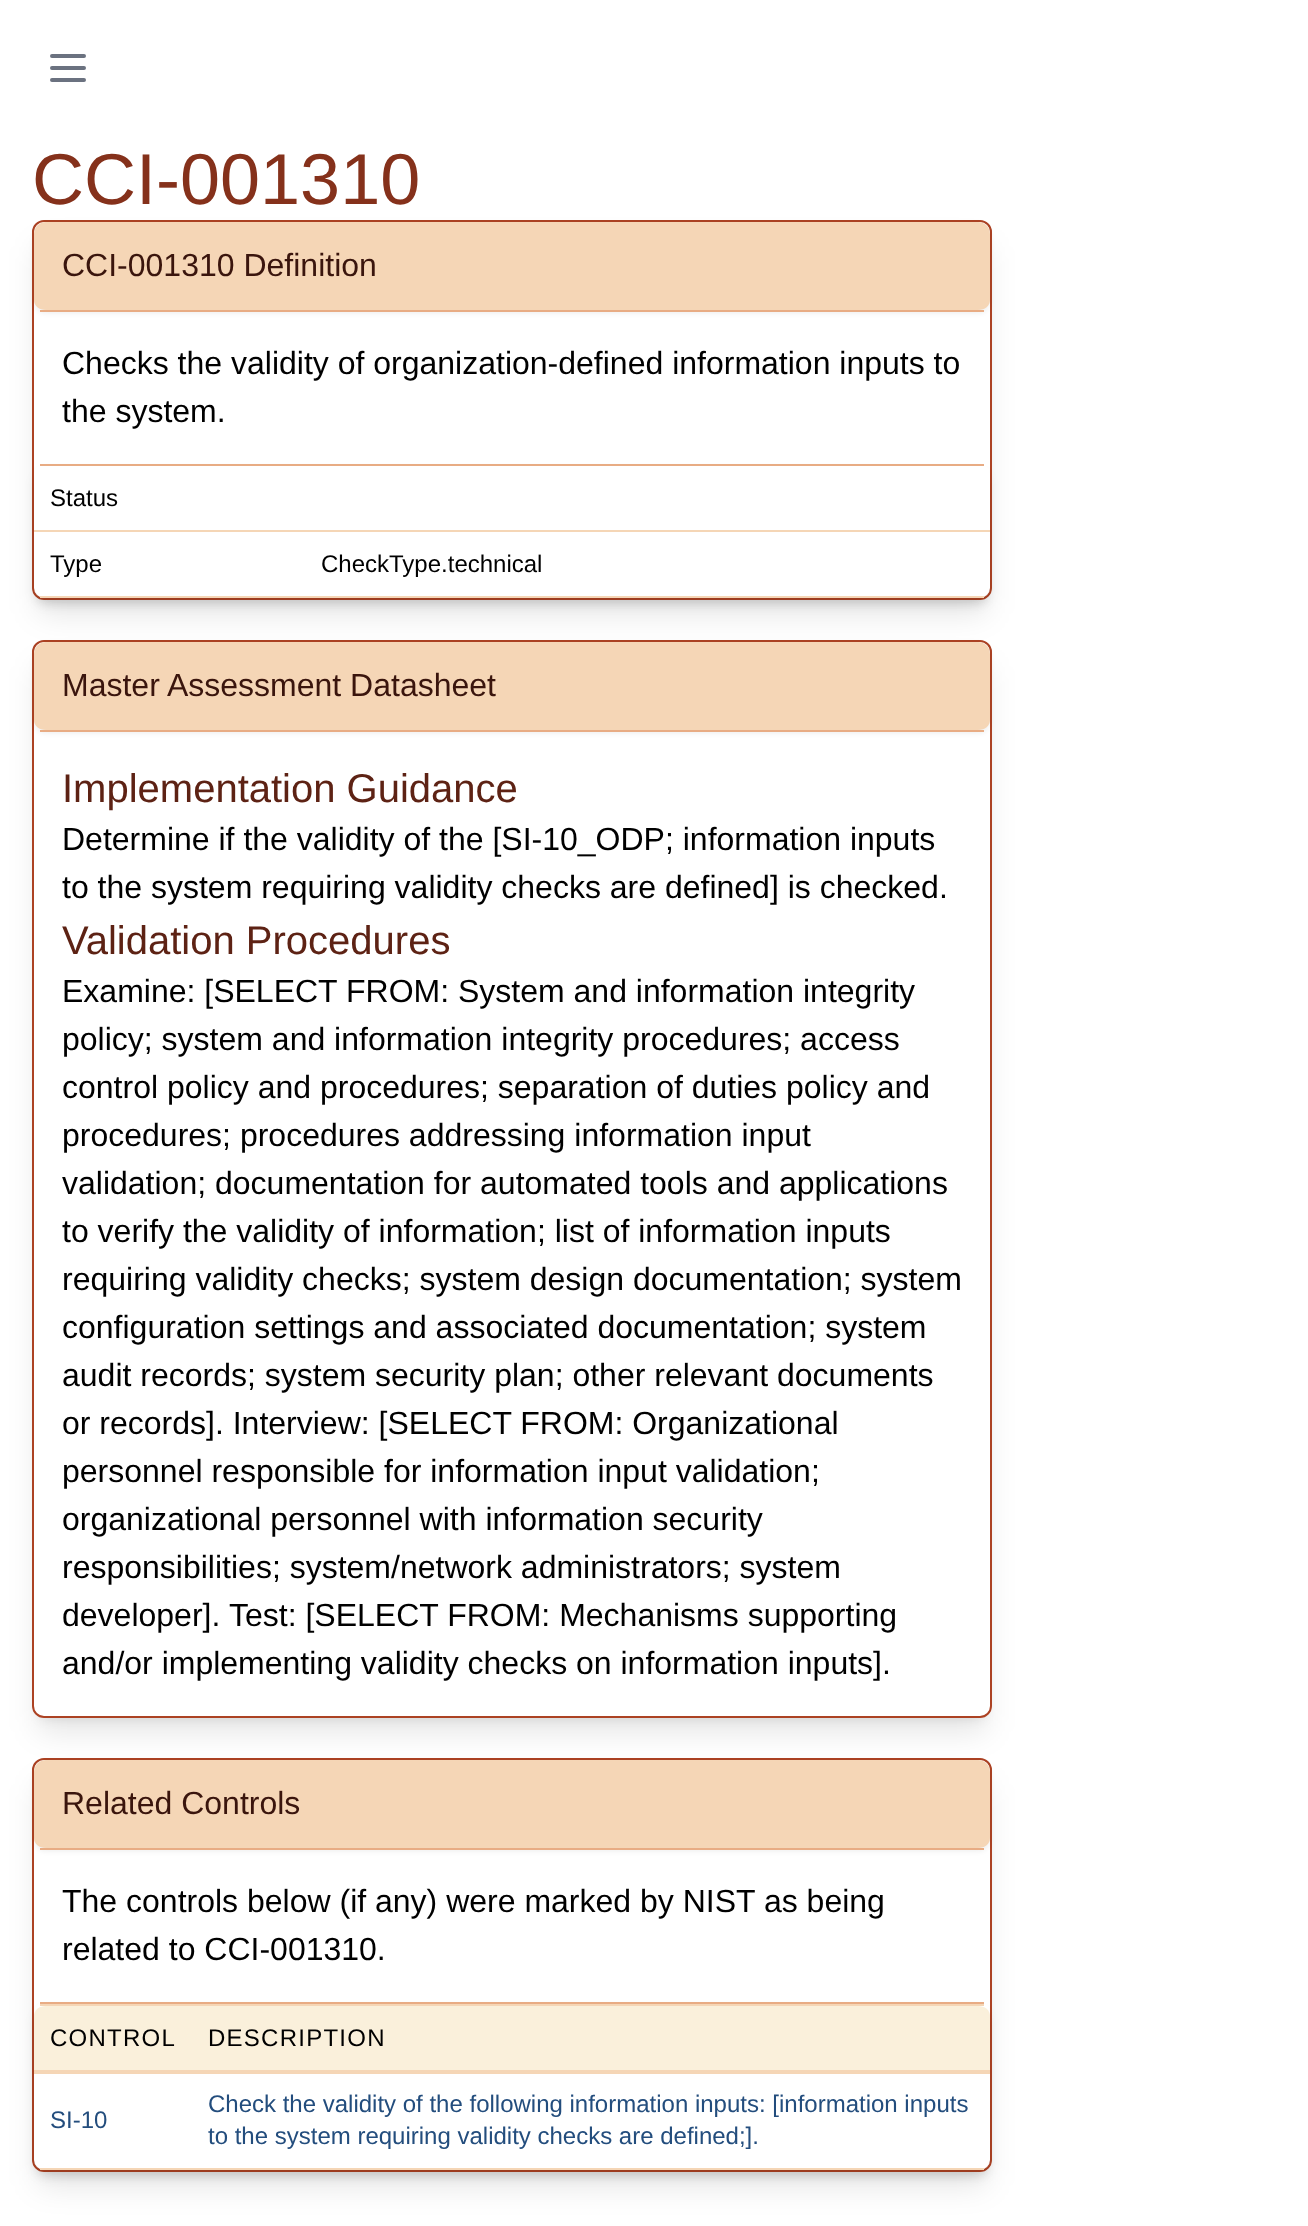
<?xml version="1.0" encoding="UTF-8"?>
<svg xmlns="http://www.w3.org/2000/svg" xmlns:xlink="http://www.w3.org/1999/xlink" width="1308" height="2226">
  <defs>
    <clipPath id="clip1"><path d="M 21 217 h 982 v 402 h -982 z m 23 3 h 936 c 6.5 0 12 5.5 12 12 v 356 c 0 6.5 -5.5 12 -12 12 h -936 c -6.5 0 -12 -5.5 -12 -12 v -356 c 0 -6.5 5.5 -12 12 -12 z" clip-rule="evenodd" /></clipPath>
    <clipPath id="clip2"><path d="M 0 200 h 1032 v 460 h -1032 z m 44 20 h 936 c 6.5 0 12 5.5 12 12 v 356 c 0 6.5 -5.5 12 -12 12 h -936 c -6.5 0 -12 -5.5 -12 -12 v -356 c 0 -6.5 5.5 -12 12 -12 z" clip-rule="evenodd" /></clipPath>
    <clipPath id="clip3"><path d="M 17 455 h 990 v 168 h -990 z m 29 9 h 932 c 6.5 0 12 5.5 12 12 v 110 c 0 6.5 -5.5 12 -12 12 h -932 c -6.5 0 -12 -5.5 -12 -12 v -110 c 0 -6.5 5.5 -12 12 -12 z" clip-rule="evenodd" /></clipPath>
    <clipPath id="clip4"><path d="M 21 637 h 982 v 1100 h -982 z m 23 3 h 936 c 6.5 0 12 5.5 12 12 v 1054 c 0 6.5 -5.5 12 -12 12 h -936 c -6.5 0 -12 -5.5 -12 -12 v -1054 c 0 -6.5 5.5 -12 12 -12 z" clip-rule="evenodd" /></clipPath>
    <clipPath id="clip5"><path d="M 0 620 h 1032 v 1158 h -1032 z m 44 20 h 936 c 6.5 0 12 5.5 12 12 v 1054 c 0 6.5 -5.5 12 -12 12 h -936 c -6.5 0 -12 -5.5 -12 -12 v -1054 c 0 -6.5 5.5 -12 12 -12 z" clip-rule="evenodd" /></clipPath>
    <clipPath id="clip6"><path d="M 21 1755 h 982 v 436 h -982 z m 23 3 h 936 c 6.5 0 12 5.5 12 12 v 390 c 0 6.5 -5.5 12 -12 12 h -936 c -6.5 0 -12 -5.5 -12 -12 v -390 c 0 -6.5 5.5 -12 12 -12 z" clip-rule="evenodd" /></clipPath>
    <clipPath id="clip7"><path d="M 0 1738 h 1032 v 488 h -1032 z m 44 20 h 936 c 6.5 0 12 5.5 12 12 v 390 c 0 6.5 -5.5 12 -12 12 h -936 c -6.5 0 -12 -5.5 -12 -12 v -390 c 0 -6.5 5.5 -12 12 -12 z" clip-rule="evenodd" /></clipPath>
    <clipPath id="clip8"><path d="M 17 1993 h 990 v 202 h -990 z m 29 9 h 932 c 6.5 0 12 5.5 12 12 v 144 c 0 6.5 -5.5 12 -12 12 h -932 c -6.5 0 -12 -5.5 -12 -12 v -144 c 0 -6.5 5.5 -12 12 -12 z" clip-rule="evenodd" /></clipPath>
  </defs>
  <rect width="100%" height="100%" fill="#ffffff" />
  <path d="M 52 56 h 32 m -32 12 h 32 m -32 12 h 32" fill="none" stroke="#6b7280" stroke-width="4" stroke-linecap="round" stroke-linejoin="round" />
  <g clip-path="url(#clip1)">
    <rect x="40" y="236" width="944" height="364" rx="4" fill="#000000" fill-opacity="0.1" filter="blur(6px)" />
  </g>
  <g clip-path="url(#clip2)">
    <rect x="38" y="246" width="948" height="368" rx="6" fill="#000000" fill-opacity="0.1" filter="blur(15px)" />
  </g>
  <rect x="33" y="221" width="958" height="378" rx="11" fill="none" stroke="#ac4223" stroke-width="2" />
  <rect x="34" y="224" width="956" height="90" rx="12" fill="#000000" fill-opacity="0.05" filter="blur(2px)" />
  <path d="M 46 222 h 932 c 7 0 12 5 12 12 v 66 c 0 6 -5 10 -12 10 h -932 c -7 0 -12 -4 -12 -10 v -66 c 0 -7 5 -12 12 -12 z" fill="#f5d6b6" />
  <rect x="40" y="310" width="944" height="2" fill="#e8ac84" />
  <g clip-path="url(#clip3)">
    <rect x="36" y="474" width="952" height="130" rx="10" fill="#000000" fill-opacity="0.1" filter="blur(6px)" />
  </g>
  <rect x="40" y="464" width="944" height="2" fill="#e8ac84" />
  <rect x="34" y="530" width="956" height="2" fill="#f5d6b6" />
  <rect x="40" y="596" width="944" height="2" fill="#f5d6b6" />
  <g clip-path="url(#clip4)">
    <rect x="40" y="656" width="944" height="1062" rx="4" fill="#000000" fill-opacity="0.1" filter="blur(6px)" />
  </g>
  <g clip-path="url(#clip5)">
    <rect x="38" y="666" width="948" height="1066" rx="6" fill="#000000" fill-opacity="0.1" filter="blur(15px)" />
  </g>
  <rect x="33" y="641" width="958" height="1076" rx="11" fill="none" stroke="#ac4223" stroke-width="2" />
  <rect x="34" y="644" width="956" height="90" rx="12" fill="#000000" fill-opacity="0.05" filter="blur(2px)" />
  <path d="M 46 642 h 932 c 7 0 12 5 12 12 v 66 c 0 6 -5 10 -12 10 h -932 c -7 0 -12 -4 -12 -10 v -66 c 0 -7 5 -12 12 -12 z" fill="#f5d6b6" />
  <rect x="40" y="730" width="944" height="2" fill="#e8ac84" />
  <g clip-path="url(#clip6)">
    <rect x="40" y="1774" width="944" height="398" rx="4" fill="#000000" fill-opacity="0.1" filter="blur(6px)" />
  </g>
  <g clip-path="url(#clip7)">
    <rect x="38" y="1784" width="948" height="402" rx="6" fill="#000000" fill-opacity="0.1" filter="blur(15px)" />
  </g>
  <rect x="33" y="1759" width="958" height="412" rx="11" fill="none" stroke="#ac4223" stroke-width="2" />
  <rect x="34" y="1762" width="956" height="90" rx="12" fill="#000000" fill-opacity="0.05" filter="blur(2px)" />
  <path d="M 46 1760 h 932 c 7 0 12 5 12 12 v 66 c 0 6 -5 10 -12 10 h -932 c -7 0 -12 -4 -12 -10 v -66 c 0 -7 5 -12 12 -12 z" fill="#f5d6b6" />
  <rect x="40" y="1848" width="944" height="2" fill="#e8ac84" />
  <g clip-path="url(#clip8)">
    <rect x="36" y="2012" width="952" height="164" rx="10" fill="#000000" fill-opacity="0.1" filter="blur(6px)" />
  </g>
  <rect x="40" y="2002" width="944" height="2" fill="#e8ac84" />
  <path d="M 46 2006 h 146 v 64 h -158 v -54 c 0 -6 5 -10 12 -10 z" fill="#faf0db" />
  <rect x="40" y="2004" width="944" height="2" fill="#f5d6b6" />
  <rect x="34" y="2070" width="956" height="4" fill="#f5d6b6" />
  <path d="M 192 2006 h 786 c 7 0 12 4 12 10 v 54 h -798 z" fill="#faf0db" />
  <rect x="40" y="2168" width="944" height="2" fill="#f5d6b6" />
  <text x="32" y="204" style="font-family: Liberation Sans; font-size: 72px; fill: #85311b">CCI-001310</text>
  <text x="62" y="276" style="font-family: Liberation Sans; font-size: 32px; fill: #3a150d">CCI-001310 Definition</text>
  <text x="62" y="374" style="font-family: Liberation Sans; font-size: 32px; fill: #000000">Checks the validity of organization-defined information inputs to</text>
  <text x="62" y="422" style="font-family: Liberation Sans; font-size: 32px; fill: #000000">the system.</text>
  <text x="50" y="506" style="font-family: Liberation Sans; font-size: 24px; fill: #000000">Status</text>
  <text x="50" y="572" style="font-family: Liberation Sans; font-size: 24px; fill: #000000">Type</text>
  <text x="321" y="572" style="font-family: Liberation Sans; font-size: 24px; fill: #000000">CheckType.technical</text>
  <text x="62" y="696" style="font-family: Liberation Sans; font-size: 32px; fill: #3a150d">Master Assessment Datasheet</text>
  <text x="62" y="802" style="font-family: Liberation Sans; font-size: 40px; fill: #5d2214">Implementation Guidance</text>
  <text x="62" y="850" style="font-family: Liberation Sans; font-size: 32px; fill: #000000">Determine if the validity of the [SI-10_ODP; information inputs</text>
  <text x="62" y="898" style="font-family: Liberation Sans; font-size: 32px; fill: #000000">to the system requiring validity checks are defined] is checked.</text>
  <text x="62" y="954" style="font-family: Liberation Sans; font-size: 40px; fill: #5d2214">Validation Procedures</text>
  <text x="62" y="1002" style="font-family: Liberation Sans; font-size: 32px; fill: #000000">Examine: [SELECT FROM: System and information integrity</text>
  <text x="62" y="1050" style="font-family: Liberation Sans; font-size: 32px; fill: #000000">policy; system and information integrity procedures; access</text>
  <text x="62" y="1098" style="font-family: Liberation Sans; font-size: 32px; fill: #000000">control policy and procedures; separation of duties policy and</text>
  <text x="62" y="1146" style="font-family: Liberation Sans; font-size: 32px; fill: #000000">procedures; procedures addressing information input</text>
  <text x="62" y="1194" style="font-family: Liberation Sans; font-size: 32px; fill: #000000">validation; documentation for automated tools and applications</text>
  <text x="62" y="1242" style="font-family: Liberation Sans; font-size: 32px; fill: #000000">to verify the validity of information; list of information inputs</text>
  <text x="62" y="1290" style="font-family: Liberation Sans; font-size: 32px; fill: #000000">requiring validity checks; system design documentation; system</text>
  <text x="62" y="1338" style="font-family: Liberation Sans; font-size: 32px; fill: #000000">configuration settings and associated documentation; system</text>
  <text x="62" y="1386" style="font-family: Liberation Sans; font-size: 32px; fill: #000000">audit records; system security plan; other relevant documents</text>
  <text x="62" y="1434" style="font-family: Liberation Sans; font-size: 32px; fill: #000000">or records]. Interview: [SELECT FROM: Organizational</text>
  <text x="62" y="1482" style="font-family: Liberation Sans; font-size: 32px; fill: #000000">personnel responsible for information input validation;</text>
  <text x="62" y="1530" style="font-family: Liberation Sans; font-size: 32px; fill: #000000">organizational personnel with information security</text>
  <text x="62" y="1578" style="font-family: Liberation Sans; font-size: 32px; fill: #000000">responsibilities; system/network administrators; system</text>
  <text x="62" y="1626" style="font-family: Liberation Sans; font-size: 32px; fill: #000000">developer].</text>
  <text x="229" y="1626" style="font-family: Liberation Sans; font-size: 32px; fill: #000000">Test: [SELECT FROM: Mechanisms supporting</text>
  <text x="62" y="1674" style="font-family: Liberation Sans; font-size: 32px; fill: #000000">and/or implementing validity checks on information inputs].</text>
  <text x="62" y="1814" style="font-family: Liberation Sans; font-size: 32px; fill: #3a150d">Related Controls</text>
  <text x="62" y="1912" style="font-family: Liberation Sans; font-size: 32px; fill: #000000">The controls below (if any) were marked by NIST as being</text>
  <text x="62" y="1960" style="font-family: Liberation Sans; font-size: 32px; fill: #000000">related to CCI-001310.</text>
  <text x="50" y="2046" style="font-family: Liberation Sans; font-size: 24px; letter-spacing: 1.25px; fill: #000000">CONTROL</text>
  <text x="208" y="2046" style="font-family: Liberation Sans; font-size: 24px; letter-spacing: 1.25px; fill: #000000">DESCRIPTION</text>
  <text x="50" y="2128" style="font-family: Liberation Sans; font-size: 24px; fill: #234d7d">SI-10</text>
  <text x="208" y="2112" style="font-family: Liberation Sans; font-size: 24px; fill: #234d7d">Check the validity of the following information inputs: [information inputs</text>
  <text x="208" y="2144" style="font-family: Liberation Sans; font-size: 24px; fill: #234d7d">to the system requiring validity checks are defined;].</text>
</svg>
